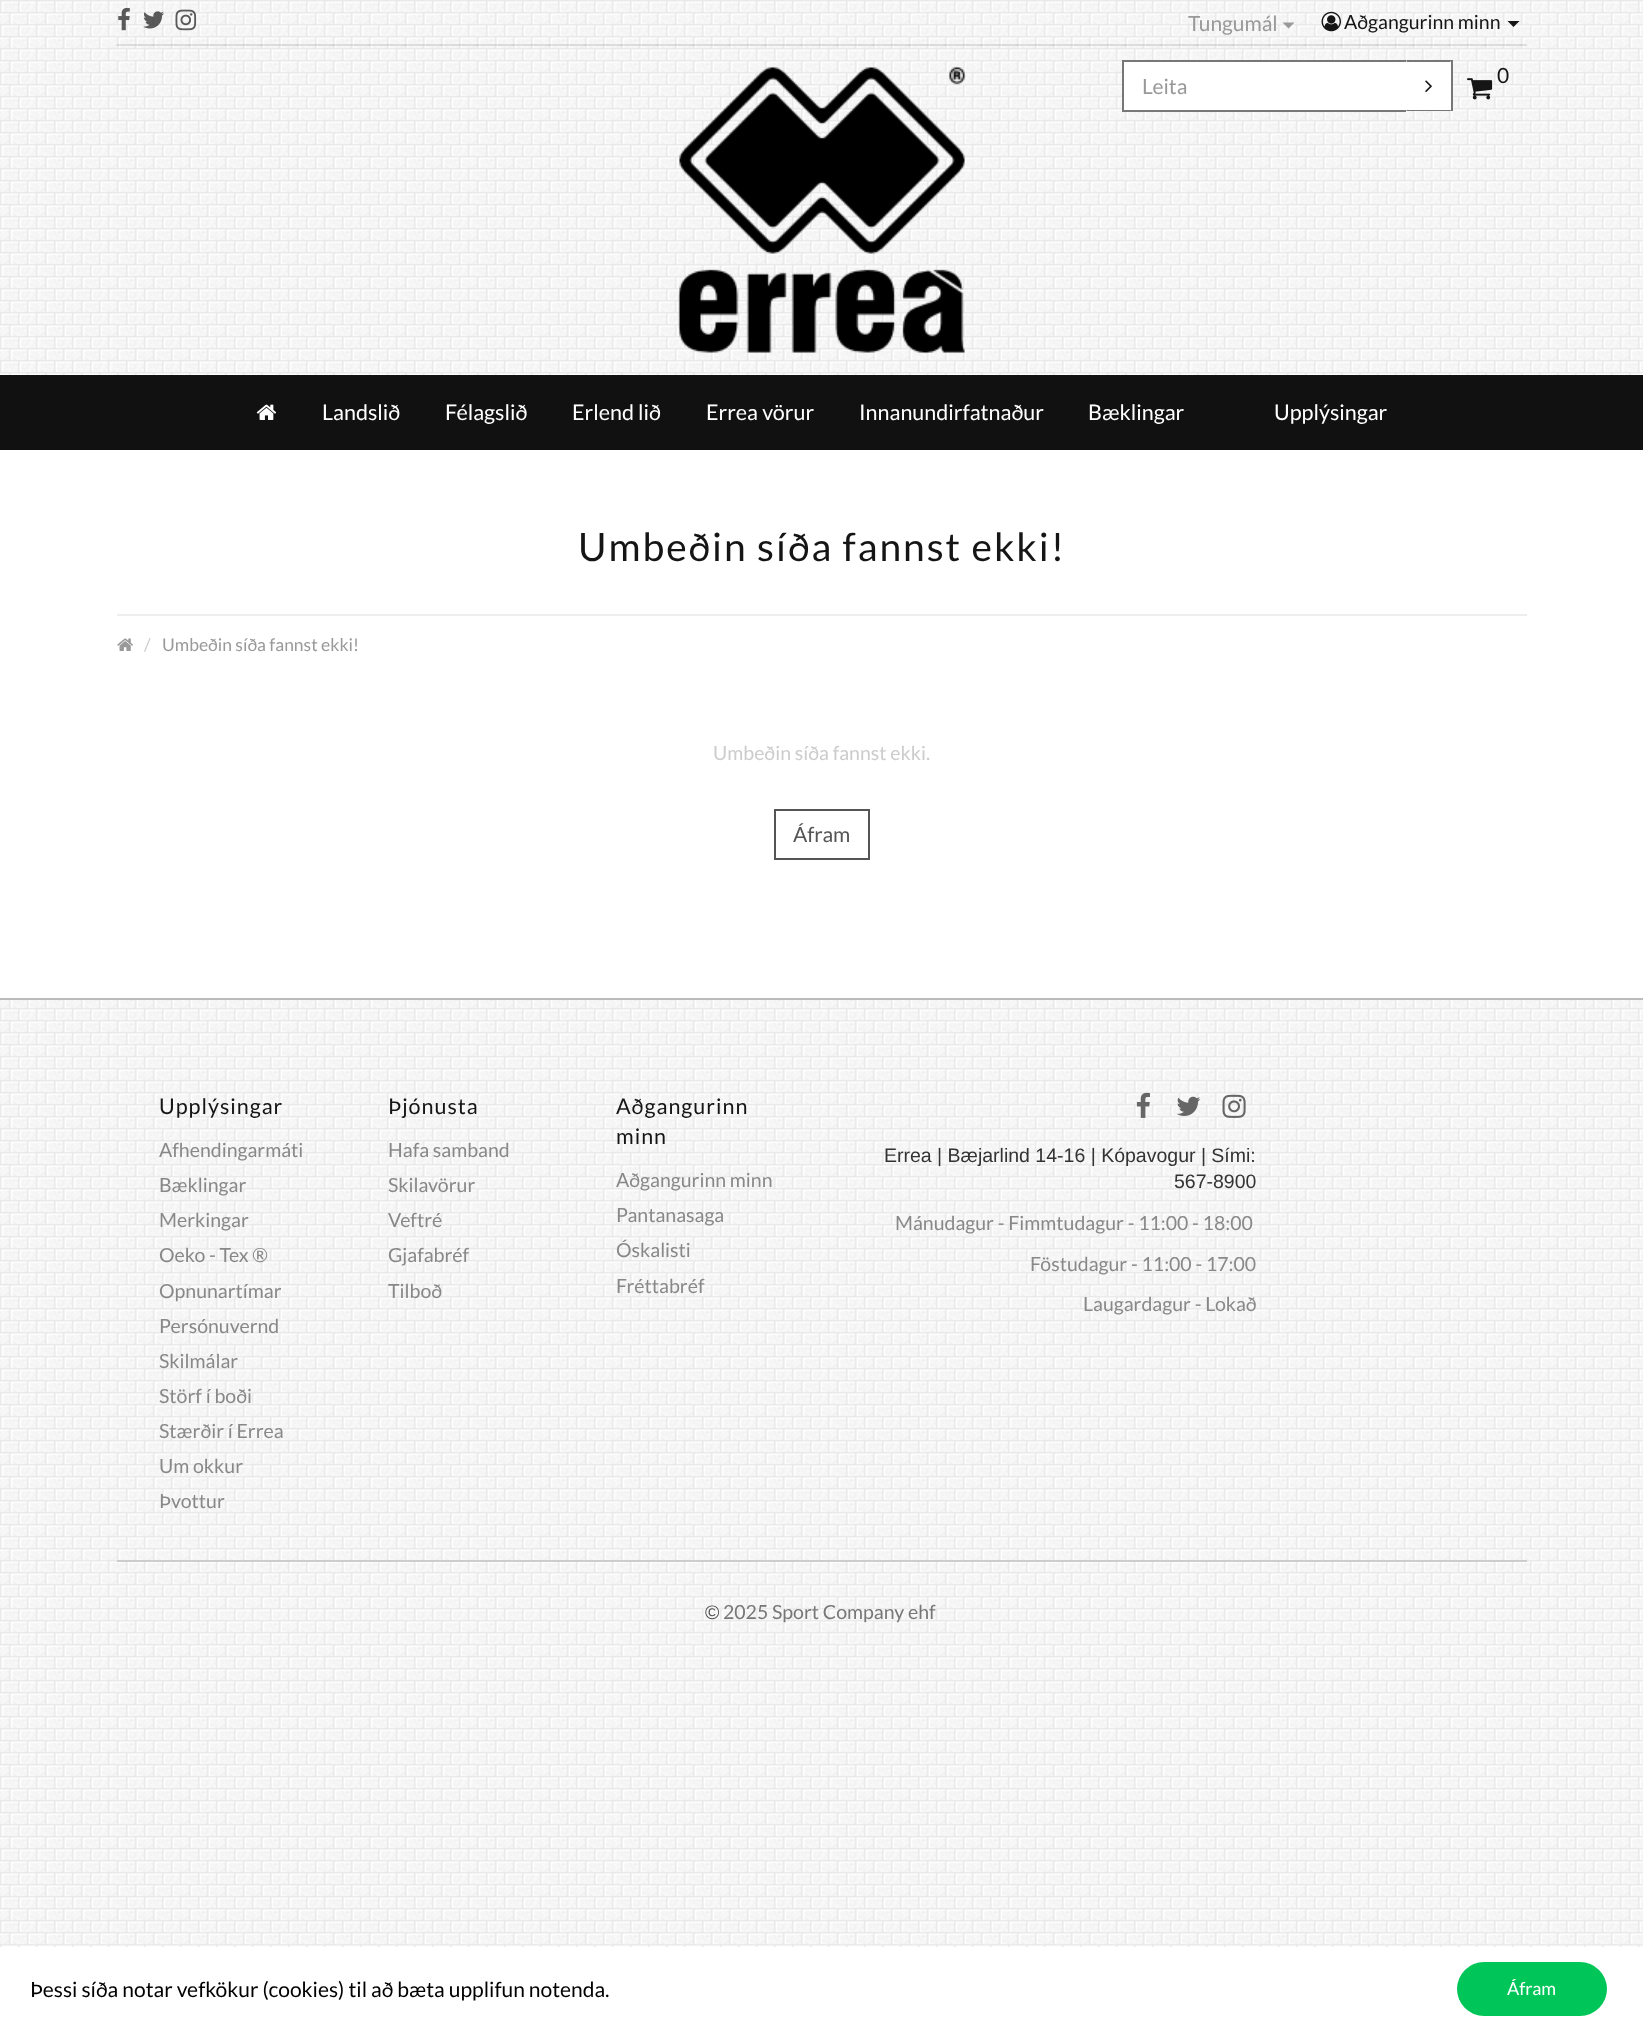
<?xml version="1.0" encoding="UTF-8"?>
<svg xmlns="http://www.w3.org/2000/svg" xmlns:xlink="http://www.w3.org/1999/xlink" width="1643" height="2031">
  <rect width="100%" height="100%" fill="#ffffff" />
  <image x="0" y="0" width="1643" height="1947" xlink:href="image1.png" />
  <rect x="117" y="44" width="1410" height="2" fill="#000000" fill-opacity="0.1" />
  <image x="118" y="7" width="12" height="24" xlink:href="image2.png" />
  <image x="143" y="11" width="21" height="18" xlink:href="image3.png" />
  <image x="175" y="9" width="22" height="22" xlink:href="image4.png" />
  <path d="M 1282.5 22.5 h 12 l -6 6 z" fill="#999999" />
  <image x="1321" y="11" width="20" height="21" xlink:href="image5.png" />
  <path d="M 1507.5 21 h 12 l -6 6 z" fill="#151515" />
  <image x="678" y="66" width="288" height="288" xlink:href="image6.png" />
  <image x="1467" y="78" width="26" height="22" xlink:href="image7.png" />
  <rect x="1124" y="62" width="282" height="48" fill="#ffffff" />
  <rect x="1122" y="60" width="284" height="2" fill="#777777" />
  <rect x="1122" y="110" width="284" height="2" fill="#777777" />
  <rect x="1122" y="60" width="2" height="51" fill="#777777" />
  <rect x="1406" y="60" width="45" height="51" fill="#ffffff" />
  <path d="M 1406 60 h 46 l -2 2 h -43 z" fill="#777777" />
  <rect x="1451" y="60" width="2" height="51" fill="#777777" />
  <path d="M 1452 111 h -46 l 1 -1 h 43 z" fill="#777777" />
  <image x="1425" y="80" width="7" height="12" xlink:href="image8.png" />
  <rect y="375" width="1643" height="75" fill="#111111" />
  <image x="256" y="404" width="21" height="16" xlink:href="image9.png" />
  <rect y="450" width="1643" height="548" fill="#ffffff" />
  <rect y="998" width="1643" height="2" fill="#bbbbbb" />
  <rect x="117" y="614" width="1410" height="2" fill="#eeeeee" />
  <image x="117" y="638" width="16" height="13" xlink:href="image10.png" />
  <rect x="775" y="810" width="94" height="49" fill="none" stroke="#555555" stroke-width="2" />
  <image x="1136" y="1092" width="14" height="26" xlink:href="image11.png" />
  <image x="1176" y="1096" width="25" height="20" xlink:href="image12.png" />
  <image x="1222" y="1094" width="24" height="24" xlink:href="image13.png" />
  <rect x="117" y="1560" width="1410" height="2" fill="#cccccc" />
  <rect x="1457" y="1962" width="150" height="54" rx="27" fill="#00c659" />
  <text x="1188" y="31" style="font-family: Lato; font-size: 21px; fill: #999999">Tungumál</text>
  <text x="1344" y="29" style="font-family: Lato; font-size: 19.5px; fill: #151515">Aðgangurinn minn</text>
  <text x="1497" y="83" style="font-family: Lato; font-size: 21px; fill: #151515">0</text>
  <text x="1142" y="94" style="font-family: Lato; font-size: 21px; fill: #999999">Leita</text>
  <text x="322" y="420" style="font-family: Lato; font-size: 21.5px; fill: #ffffff">Landslið</text>
  <text x="445" y="420" style="font-family: Lato; font-size: 21.5px; fill: #ffffff">Félagslið</text>
  <text x="572" y="420" style="font-family: Lato; font-size: 21.5px; fill: #ffffff">Erlend lið</text>
  <text x="706" y="420" style="font-family: Lato; font-size: 21.5px; fill: #ffffff">Errea vörur</text>
  <text x="859" y="420" style="font-family: Lato; font-size: 21.5px; fill: #ffffff">Innanundirfatnaður</text>
  <text x="1088" y="420" style="font-family: Lato; font-size: 21.5px; fill: #ffffff">Bæklingar</text>
  <text x="1274" y="420" style="font-family: Lato; font-size: 21.5px; fill: #ffffff">Upplýsingar</text>
  <text x="578" y="561" style="font-family: Lato; font-size: 39px; letter-spacing: 1.95px; fill: #151515">Umbeðin síða fannst ekki!</text>
  <text x="144" y="651" style="font-family: Lato; font-size: 17.5px; fill: #cccccc">/</text>
  <text x="162" y="651" style="font-family: Lato; font-size: 17.5px; fill: #999999">Umbeðin síða fannst ekki!</text>
  <text x="713" y="760" style="font-family: Lato; font-size: 19.5px; fill: #cccccc">Umbeðin síða fannst ekki.</text>
  <text x="793" y="842" style="font-family: Lato; font-size: 21px; fill: #555555">Áfram</text>
  <text x="159" y="1114" style="font-family: Lato; font-size: 21.5px; letter-spacing: 1px; fill: #151515">Upplýsingar</text>
  <text x="159" y="1157" style="font-family: Lato; font-size: 19.5px; fill: #888888">Afhendingarmáti</text>
  <text x="159" y="1192" style="font-family: Lato; font-size: 19.5px; fill: #888888">Bæklingar</text>
  <text x="159" y="1227" style="font-family: Lato; font-size: 19.5px; fill: #888888">Merkingar</text>
  <text x="159" y="1262" style="font-family: Lato; font-size: 19.5px; fill: #888888">Oeko - Tex ®</text>
  <text x="159" y="1298" style="font-family: Lato; font-size: 19.5px; fill: #888888">Opnunartímar</text>
  <text x="159" y="1333" style="font-family: Lato; font-size: 19.5px; fill: #888888">Persónuvernd</text>
  <text x="159" y="1368" style="font-family: Lato; font-size: 19.5px; fill: #888888">Skilmálar</text>
  <text x="159" y="1403" style="font-family: Lato; font-size: 19.5px; fill: #888888">Störf í boði</text>
  <text x="159" y="1438" style="font-family: Lato; font-size: 19.5px; fill: #888888">Stærðir í Errea</text>
  <text x="159" y="1473" style="font-family: Lato; font-size: 19.5px; fill: #888888">Um okkur</text>
  <text x="159" y="1508" style="font-family: Lato; font-size: 19.5px; fill: #888888">Þvottur</text>
  <text x="388" y="1114" style="font-family: Lato; font-size: 21.5px; letter-spacing: 1px; fill: #151515">Þjónusta</text>
  <text x="388" y="1157" style="font-family: Lato; font-size: 19.5px; fill: #888888">Hafa samband</text>
  <text x="388" y="1192" style="font-family: Lato; font-size: 19.5px; fill: #888888">Skilavörur</text>
  <text x="388" y="1227" style="font-family: Lato; font-size: 19.5px; fill: #888888">Veftré</text>
  <text x="388" y="1262" style="font-family: Lato; font-size: 19.5px; fill: #888888">Gjafabréf</text>
  <text x="388" y="1298" style="font-family: Lato; font-size: 19.5px; fill: #888888">Tilboð</text>
  <text x="616" y="1114" style="font-family: Lato; font-size: 21.5px; letter-spacing: 1px; fill: #151515">Aðgangurinn</text>
  <text x="616" y="1144" style="font-family: Lato; font-size: 21.5px; letter-spacing: 1px; fill: #151515">minn</text>
  <text x="616" y="1187" style="font-family: Lato; font-size: 19.5px; fill: #888888">Aðgangurinn minn</text>
  <text x="616" y="1222" style="font-family: Lato; font-size: 19.5px; fill: #888888">Pantanasaga</text>
  <text x="616" y="1257" style="font-family: Lato; font-size: 19.5px; fill: #888888">Óskalisti</text>
  <text x="616" y="1293" style="font-family: Lato; font-size: 19.5px; fill: #888888">Fréttabréf</text>
  <text x="884" y="1162" style="font-family: Liberation Sans; font-size: 19.5px; fill: #333333">Errea | Bæjarlind 14-16 | Kópavogur | Sími:</text>
  <text x="1174" y="1188" style="font-family: Liberation Sans; font-size: 19.5px; fill: #333333">567-8900</text>
  <text x="895" y="1230" style="font-family: Lato; font-size: 19.5px; fill: #888888">Mánudagur - Fimmtudagur - 11:00 - 18:00</text>
  <text x="1030" y="1271" style="font-family: Lato; font-size: 19.5px; fill: #888888">Föstudagur - 11:00 - 17:00</text>
  <text x="1083" y="1311" style="font-family: Lato; font-size: 19.5px; fill: #888888">Laugardagur - Lokað</text>
  <text x="705" y="1619" style="font-family: Liberation Sans; font-size: 19.5px; fill: #4c4c4c">©</text>
  <text x="723" y="1619" style="font-family: Lato; font-size: 19.5px; fill: #777777">2025 Sport Company ehf</text>
  <text x="30" y="1997" style="font-family: Lato; font-size: 21px; fill: #000000">Þessi síða notar vefkökur (cookies) til að bæta upplifun notenda.</text>
  <text x="1507" y="1995" style="font-family: Lato; font-size: 18px; fill: #ffffff">Áfram</text>
</svg>
